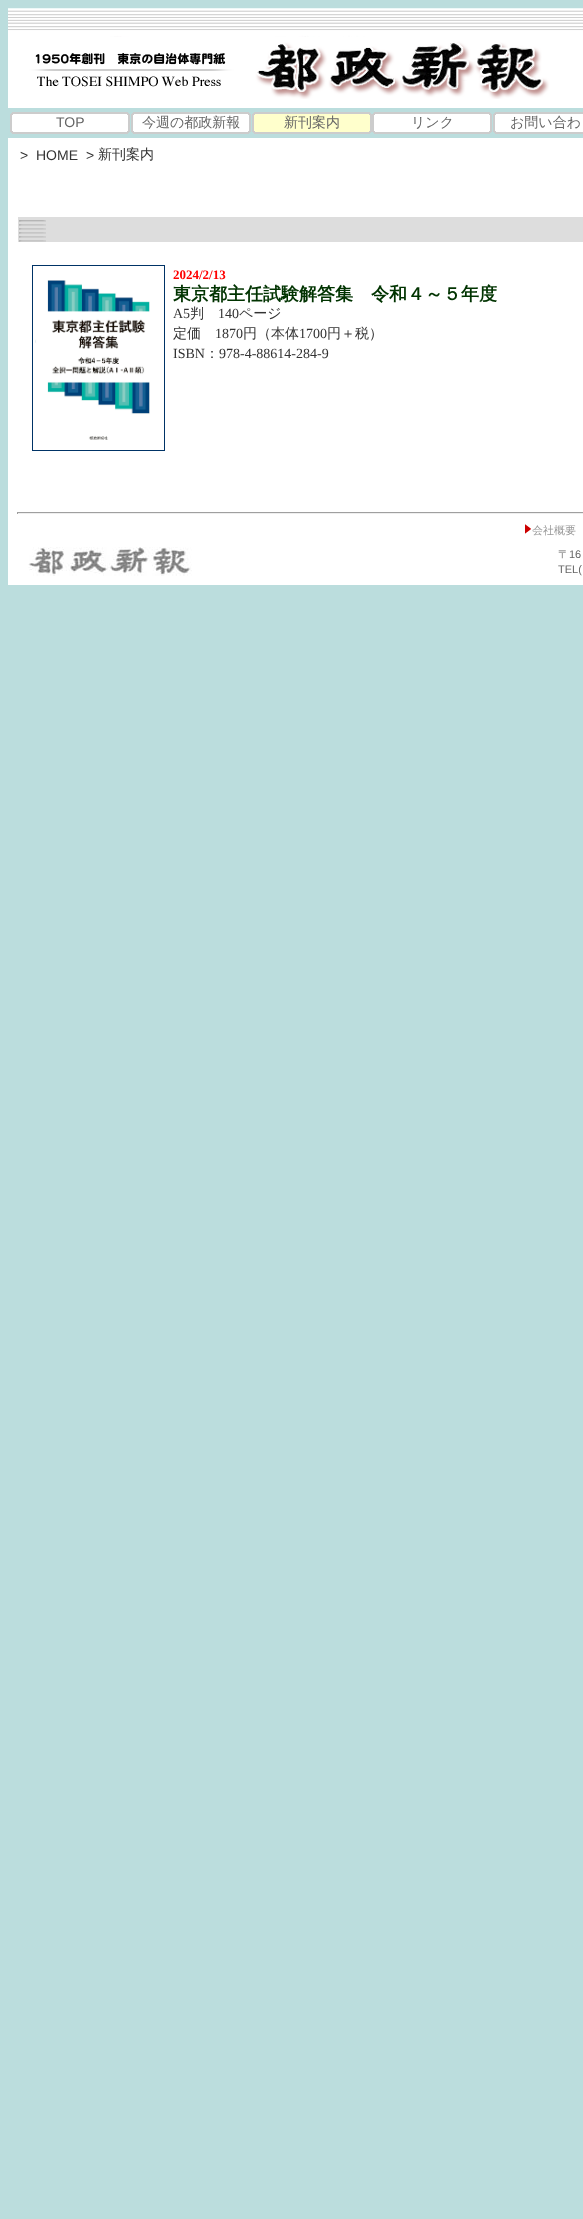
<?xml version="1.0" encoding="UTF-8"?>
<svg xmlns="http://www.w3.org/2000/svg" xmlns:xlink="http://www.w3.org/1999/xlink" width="583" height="2219">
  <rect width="100%" height="100%" fill="#bbdddd" />
  <rect x="8" y="99" width="575" height="9" fill="#ffffff" />
  <image x="8" y="8" width="575" height="91" xlink:href="image1.png" />
  <image x="10" y="112" width="120" height="22" xlink:href="image2.png" />
  <image x="131" y="112" width="120" height="22" xlink:href="image2.png" />
  <image x="252" y="112" width="120" height="22" xlink:href="image3.png" />
  <image x="372" y="112" width="120" height="22" xlink:href="image2.png" />
  <image x="493" y="112" width="90" height="22" xlink:href="image4.png" />
  <rect x="8" y="138" width="575" height="447" fill="#ffffff" />
  <image x="18" y="217" width="565" height="25" xlink:href="image5.png" />
  <rect x="32.5" y="265.5" width="132" height="185" fill="none" stroke="#003366" />
  <image x="35" y="280" width="115" height="160" xlink:href="image6.png" />
  <rect x="17" y="512" width="566" height="1" fill="#9f9f9f" />
  <rect x="17" y="513" width="566" height="1" fill="#eeeeee" />
  <rect x="17" y="512" width="1" height="2" fill="#9f9f9f" />
  <image x="525" y="524" width="6" height="10" xlink:href="image7.png" />
  <image x="28" y="547" width="164" height="29" xlink:href="image8.png" />
  <text x="56" y="127" style="font-family: Liberation Sans; font-size: 14px; fill: #666666">TOP</text>
  <text x="142" y="127" style="font-family: WenQuanYi Zen Hei; font-size: 14px; font-weight: 500; fill: #666666">今週の都政新報</text>
  <text x="284" y="127" style="font-family: WenQuanYi Zen Hei; font-size: 14px; font-weight: 500; fill: #666666">新刊案内</text>
  <text x="411" y="127" style="font-family: WenQuanYi Zen Hei; font-size: 14px; font-weight: 500; fill: #666666">リンク</text>
  <text x="510" y="127" style="font-family: WenQuanYi Zen Hei; font-size: 14px; font-weight: 500; fill: #666666">お問い合わ</text>
  <text x="20" y="160" style="font-family: Liberation Sans; font-size: 14px; fill: #333333">&gt;</text>
  <text x="36" y="160" style="font-family: Liberation Sans; font-size: 14px; fill: #333333">HOME</text>
  <text x="86" y="160" style="font-family: Liberation Sans; font-size: 14px; fill: #333333">&gt;</text>
  <text x="98" y="159" style="font-family: WenQuanYi Zen Hei; font-size: 14px; font-weight: 500; fill: #333333">新刊案内</text>
  <text x="173" y="279" style="font-family: Liberation Serif; font-size: 13px; font-weight: bold; fill: #ff0000">2024/2/13</text>
  <text x="173" y="300" style="font-family: WenQuanYi Zen Hei; font-size: 18px; font-weight: bold; fill: #003300">東京都主任試験解答集　令和４～５年度</text>
  <text x="173" y="318" style="font-family: Liberation Serif; font-size: 14px; fill: #333333">A5</text>
  <text x="190" y="318" style="font-family: WenQuanYi Zen Hei; font-size: 14px; font-weight: 500; fill: #333333">判</text>
  <text x="218" y="318" style="font-family: Liberation Serif; font-size: 14px; fill: #333333">140</text>
  <text x="239" y="318" style="font-family: WenQuanYi Zen Hei; font-size: 14px; font-weight: 500; fill: #333333">ページ</text>
  <text x="173" y="338" style="font-family: WenQuanYi Zen Hei; font-size: 14px; font-weight: 500; fill: #333333">定価</text>
  <text x="215" y="338" style="font-family: Liberation Serif; font-size: 14px; fill: #333333">1870</text>
  <text x="243" y="338" style="font-family: WenQuanYi Zen Hei; font-size: 14px; font-weight: 500; fill: #333333">円（本体</text>
  <text x="299" y="338" style="font-family: Liberation Serif; font-size: 14px; fill: #333333">1700</text>
  <text x="327" y="338" style="font-family: WenQuanYi Zen Hei; font-size: 14px; font-weight: 500; fill: #333333">円＋税）</text>
  <text x="173" y="358" style="font-family: Liberation Serif; font-size: 14px; fill: #333333">ISBN</text>
  <text x="205" y="358" style="font-family: WenQuanYi Zen Hei; font-size: 14px; font-weight: 500; fill: #333333">：</text>
  <text x="219" y="358" style="font-family: Liberation Serif; font-size: 14px; fill: #333333">978-4-88614-284-9</text>
  <text x="532" y="534" style="font-family: WenQuanYi Zen Hei; font-size: 11px; font-weight: 500; fill: #999999">会社概要</text>
  <text x="558" y="558" style="font-family: WenQuanYi Zen Hei; font-size: 11px; font-weight: 500; fill: #666666">〒</text>
  <text x="569" y="558" style="font-family: Liberation Sans; font-size: 11px; fill: #666666">16</text>
  <text x="558" y="573" style="font-family: Liberation Sans; font-size: 11px; fill: #666666">TEL(</text>
</svg>
